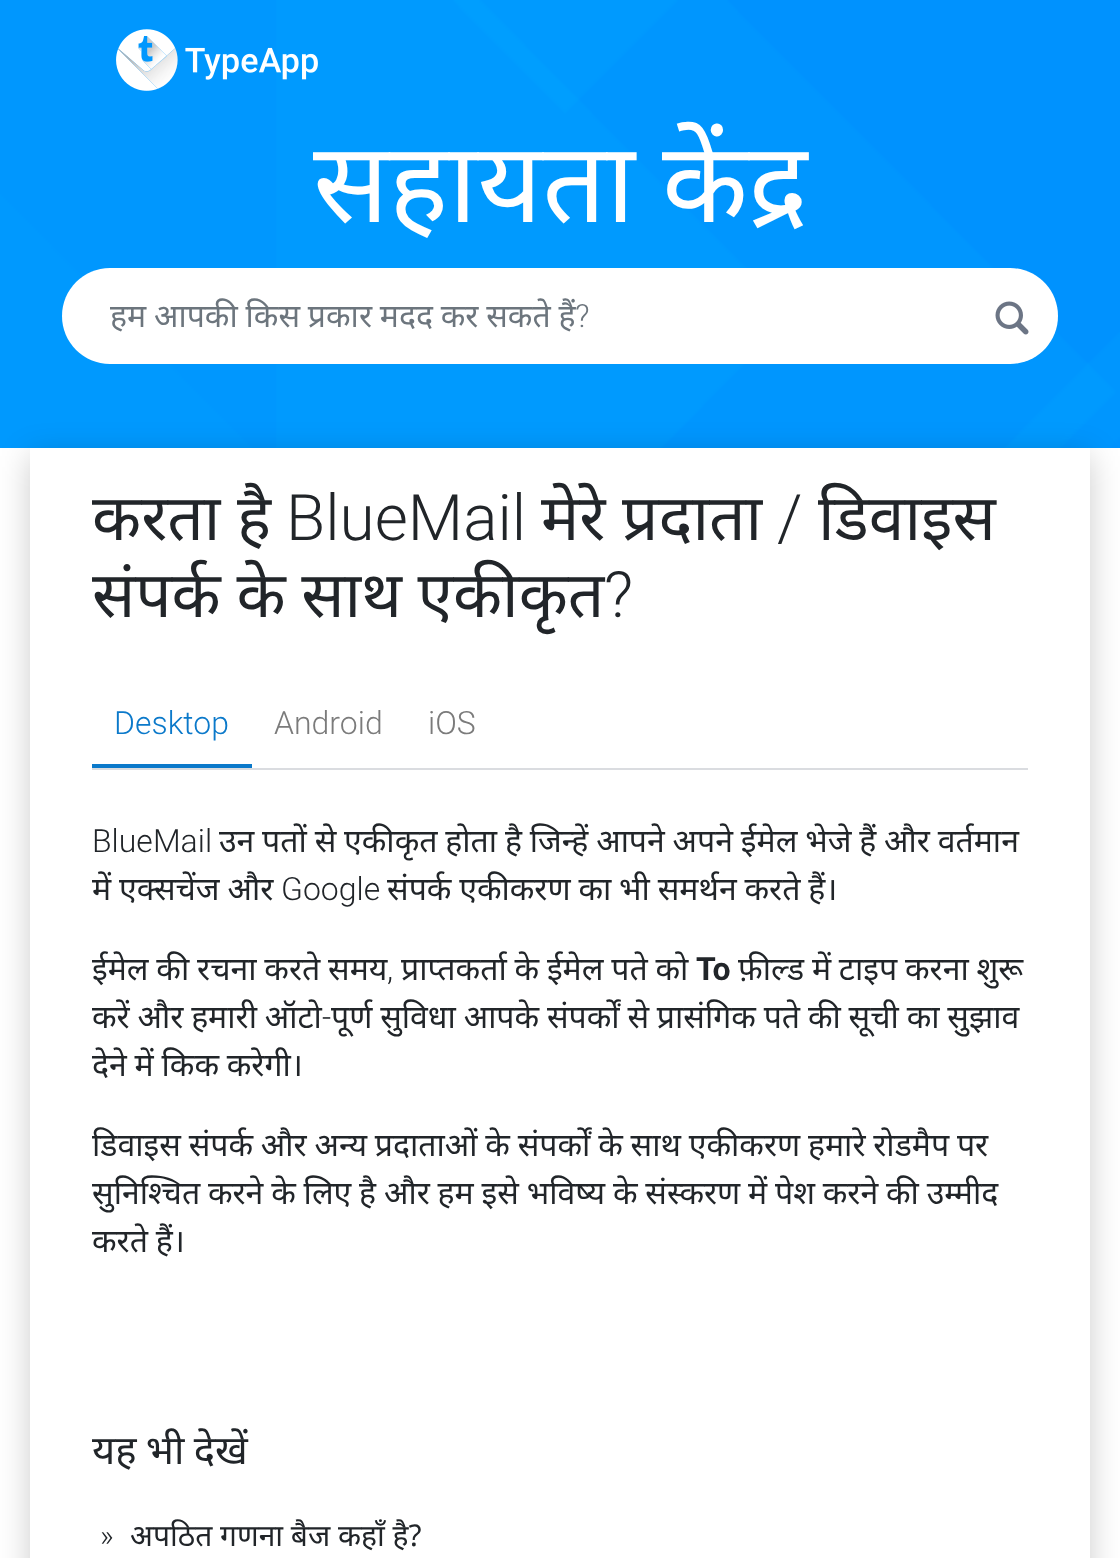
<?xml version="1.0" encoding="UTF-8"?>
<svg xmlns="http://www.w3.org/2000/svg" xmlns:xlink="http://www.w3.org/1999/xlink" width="1120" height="1558">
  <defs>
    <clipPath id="clip1"><path d="M 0 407 h 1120 v 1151 h -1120 z m 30 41 h 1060 v 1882 h -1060 z" clip-rule="evenodd" /></clipPath>
  </defs>
  <rect width="100%" height="100%" fill="#ffffff" />
  <image x="0" y="0" width="1120" height="448" xlink:href="image1.png" />
  <image x="116" y="29" width="202" height="62" xlink:href="image2.png" />
  <path d="M 110 268 h 856 v 96 h -856 c -26.5 0 -48 -21.5 -48 -48 c 0 -26.5 21.5 -48 48 -48 z" fill="#ffffff" />
  <path d="M 966 268 h 44 c 26.5 0 48 21.5 48 48 c 0 26.5 -21.5 48 -48 48 h -44 z" fill="#ffffff" />
  <image x="995" y="301" width="34" height="34" xlink:href="image3.png" />
  <g clip-path="url(#clip1)">
    <rect x="30" y="456" width="1060" height="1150" fill="#000000" fill-opacity="0.2" filter="blur(16px)" />
  </g>
  <rect x="92" y="768" width="936" height="2" fill="#dadce0" />
  <rect x="92" y="764" width="160" height="4" fill="#0b79ca" />
  <text x="313" y="222" word-spacing="-2" style="font-family: Noto Sans; font-size: 112px; fill: #ffffff">सहायता केंद्र</text>
  <text x="110" y="327" word-spacing="-0.5" style="font-family: Noto Sans; font-size: 32px; fill: #6c757d">हम आपकी किस प्रकार मदद कर सकते हैं</text>
  <text x="575" y="327" style="font-family: Roboto; font-size: 32px; font-weight: 300; fill: #6c757d">?</text>
  <text x="92" y="540" style="font-family: Noto Sans; font-size: 64px; fill: #212529">करता है</text>
  <text x="286" y="540" style="font-family: Roboto; font-size: 64px; font-weight: 300; fill: #212529">BlueMail</text>
  <text x="541" y="540" style="font-family: Noto Sans; font-size: 64px; fill: #212529">मेरे प्रदाता</text>
  <text x="777" y="540" style="font-family: Roboto; font-size: 64px; font-weight: 300; fill: #212529">/</text>
  <text x="818" y="540" style="font-family: Noto Sans; font-size: 64px; fill: #212529">डिवाइस</text>
  <text x="92" y="617" word-spacing="-1" style="font-family: Noto Sans; font-size: 64px; fill: #212529">संपर्क के साथ एकीकृत</text>
  <text x="604" y="617" style="font-family: Roboto; font-size: 64px; font-weight: 300; fill: #212529">?</text>
  <text x="114" y="734" style="font-family: Roboto; font-size: 32px; font-weight: 300; fill: #0b79ca">Desktop</text>
  <text x="274" y="734" style="font-family: Roboto; font-size: 32px; font-weight: 300; fill: #7b7b7b">Android</text>
  <text x="428" y="734" style="font-family: Roboto; font-size: 32px; font-weight: 300; fill: #7b7b7b">iOS</text>
  <text x="92" y="852" style="font-family: Roboto; font-size: 32px; font-weight: 300; fill: #212529">BlueMail</text>
  <text x="219" y="852" word-spacing="-0.5" style="font-family: Noto Sans; font-size: 32px; fill: #212529">उन पतों से एकीकृत होता है जिन्हें आपने अपने ईमेल भेजे हैं और वर्तमान</text>
  <text x="92" y="900" word-spacing="-0.5" style="font-family: Noto Sans; font-size: 32px; fill: #212529">में एक्सचेंज और</text>
  <text x="281" y="900" style="font-family: Roboto; font-size: 32px; font-weight: 300; fill: #212529">Google</text>
  <text x="387" y="900" word-spacing="-0.5" style="font-family: Noto Sans; font-size: 32px; fill: #212529">संपर्क एकीकरण का भी समर्थन करते हैं।</text>
  <text x="92" y="980" word-spacing="-0.5" style="font-family: Noto Sans; font-size: 32px; fill: #212529">ईमेल की रचना करते समय</text>
  <text x="387" y="980" style="font-family: Roboto; font-size: 32px; font-weight: 300; fill: #212529">,</text>
  <text x="401" y="980" word-spacing="-0.5" style="font-family: Noto Sans; font-size: 32px; fill: #212529">प्राप्तकर्ता के ईमेल पते को</text>
  <text x="696" y="980" style="font-family: Roboto; font-size: 32px; font-weight: bold; fill: #212529">To</text>
  <text x="738" y="980" word-spacing="-0.5" style="font-family: Noto Sans; font-size: 32px; fill: #212529">फ़ील्ड में टाइप करना शुरू</text>
  <text x="92" y="1028" word-spacing="-0.5" style="font-family: Noto Sans; font-size: 32px; fill: #212529">करें और हमारी ऑटो</text>
  <text x="322" y="1028" style="font-family: Roboto; font-size: 32px; font-weight: 300; fill: #212529">-</text>
  <text x="331" y="1028" word-spacing="-0.5" style="font-family: Noto Sans; font-size: 32px; fill: #212529">पूर्ण सुविधा आपके संपर्कों से प्रासंगिक पते की सूची का सुझाव</text>
  <text x="92" y="1076" word-spacing="-0.5" style="font-family: Noto Sans; font-size: 32px; fill: #212529">देने में किक करेगी।</text>
  <text x="92" y="1156" word-spacing="-0.5" style="font-family: Noto Sans; font-size: 32px; fill: #212529">डिवाइस संपर्क और अन्य प्रदाताओं के संपर्कों के साथ एकीकरण हमारे रोडमैप पर</text>
  <text x="92" y="1204" word-spacing="-0.5" style="font-family: Noto Sans; font-size: 32px; fill: #212529">सुनिश्चित करने के लिए है और हम इसे भविष्य के संस्करण में पेश करने की उम्मीद</text>
  <text x="92" y="1252" word-spacing="-0.5" style="font-family: Noto Sans; font-size: 32px; fill: #212529">करते हैं।</text>
  <text x="92" y="1464" word-spacing="-1" style="font-family: Noto Sans; font-size: 40px; fill: #212529">यह भी देखें</text>
  <text x="100" y="1546" style="font-family: Roboto; font-size: 30px; font-weight: 300; fill: #212529">»</text>
  <text x="130" y="1546" style="font-family: Noto Sans; font-size: 30px; fill: #212529">अपठित गणना बैज कहाँ है?</text>
</svg>
